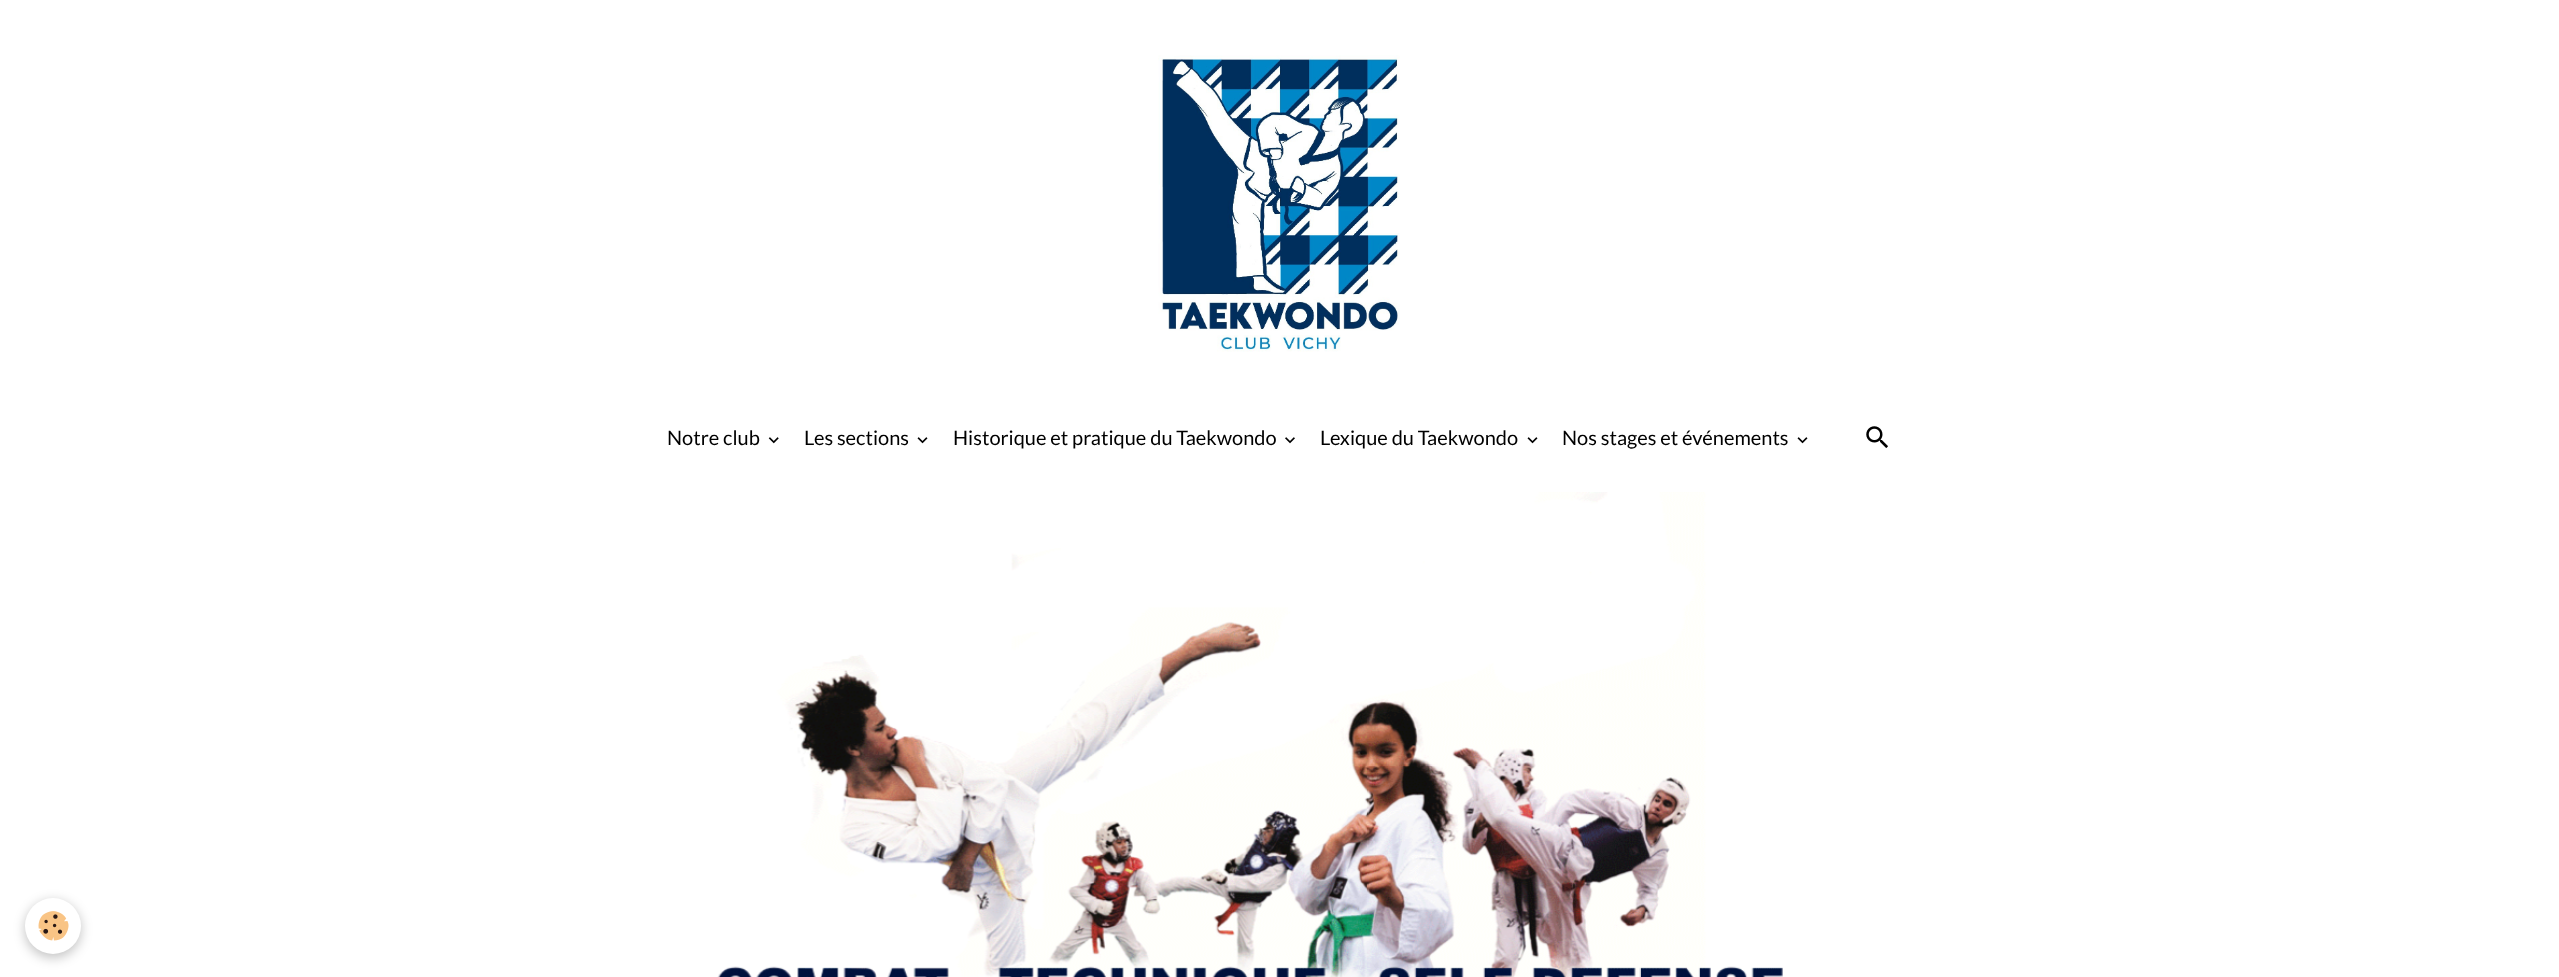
<?xml version="1.0" encoding="UTF-8"?>
<svg xmlns="http://www.w3.org/2000/svg" xmlns:xlink="http://www.w3.org/1999/xlink" width="2559" height="977">
  <rect width="100%" height="100%" fill="#ffffff" />
  <image x="1158" y="55" width="242" height="297" xlink:href="image1.png" />
  <image x="768" y="437" width="11" height="7" xlink:href="image2.png" />
  <image x="917" y="437" width="11" height="7" xlink:href="image3.png" />
  <image x="1285" y="437" width="10" height="7" xlink:href="image4.png" />
  <image x="1527" y="437" width="11" height="7" xlink:href="image3.png" />
  <image x="1797" y="437" width="11" height="7" xlink:href="image3.png" />
  <image x="1866" y="426" width="22" height="22" xlink:href="image5.png" />
  <rect x="25" y="901" width="56" height="57" rx="28" fill="#000000" fill-opacity="0.24" filter="blur(6px)" />
  <circle cx="53" cy="926" r="28" fill="#ffffff" />
  <image x="38" y="911" width="31" height="30" xlink:href="image6.png" />
  <image x="717" y="492" width="1066" height="485" xlink:href="image7.png" />
  <text x="667" y="445" style="font-family: Lato; font-size: 20px; fill: #000000">Notre club</text>
  <text x="804" y="445" style="font-family: Lato; font-size: 20px; fill: #000000">Les sections</text>
  <text x="953" y="445" style="font-family: Lato; font-size: 20px; fill: #000000">Historique et pratique du Taekwondo</text>
  <text x="1320" y="445" style="font-family: Lato; font-size: 20px; fill: #000000">Lexique du Taekwondo</text>
  <text x="1562" y="445" style="font-family: Lato; font-size: 20px; fill: #000000">Nos stages et événements</text>
</svg>
